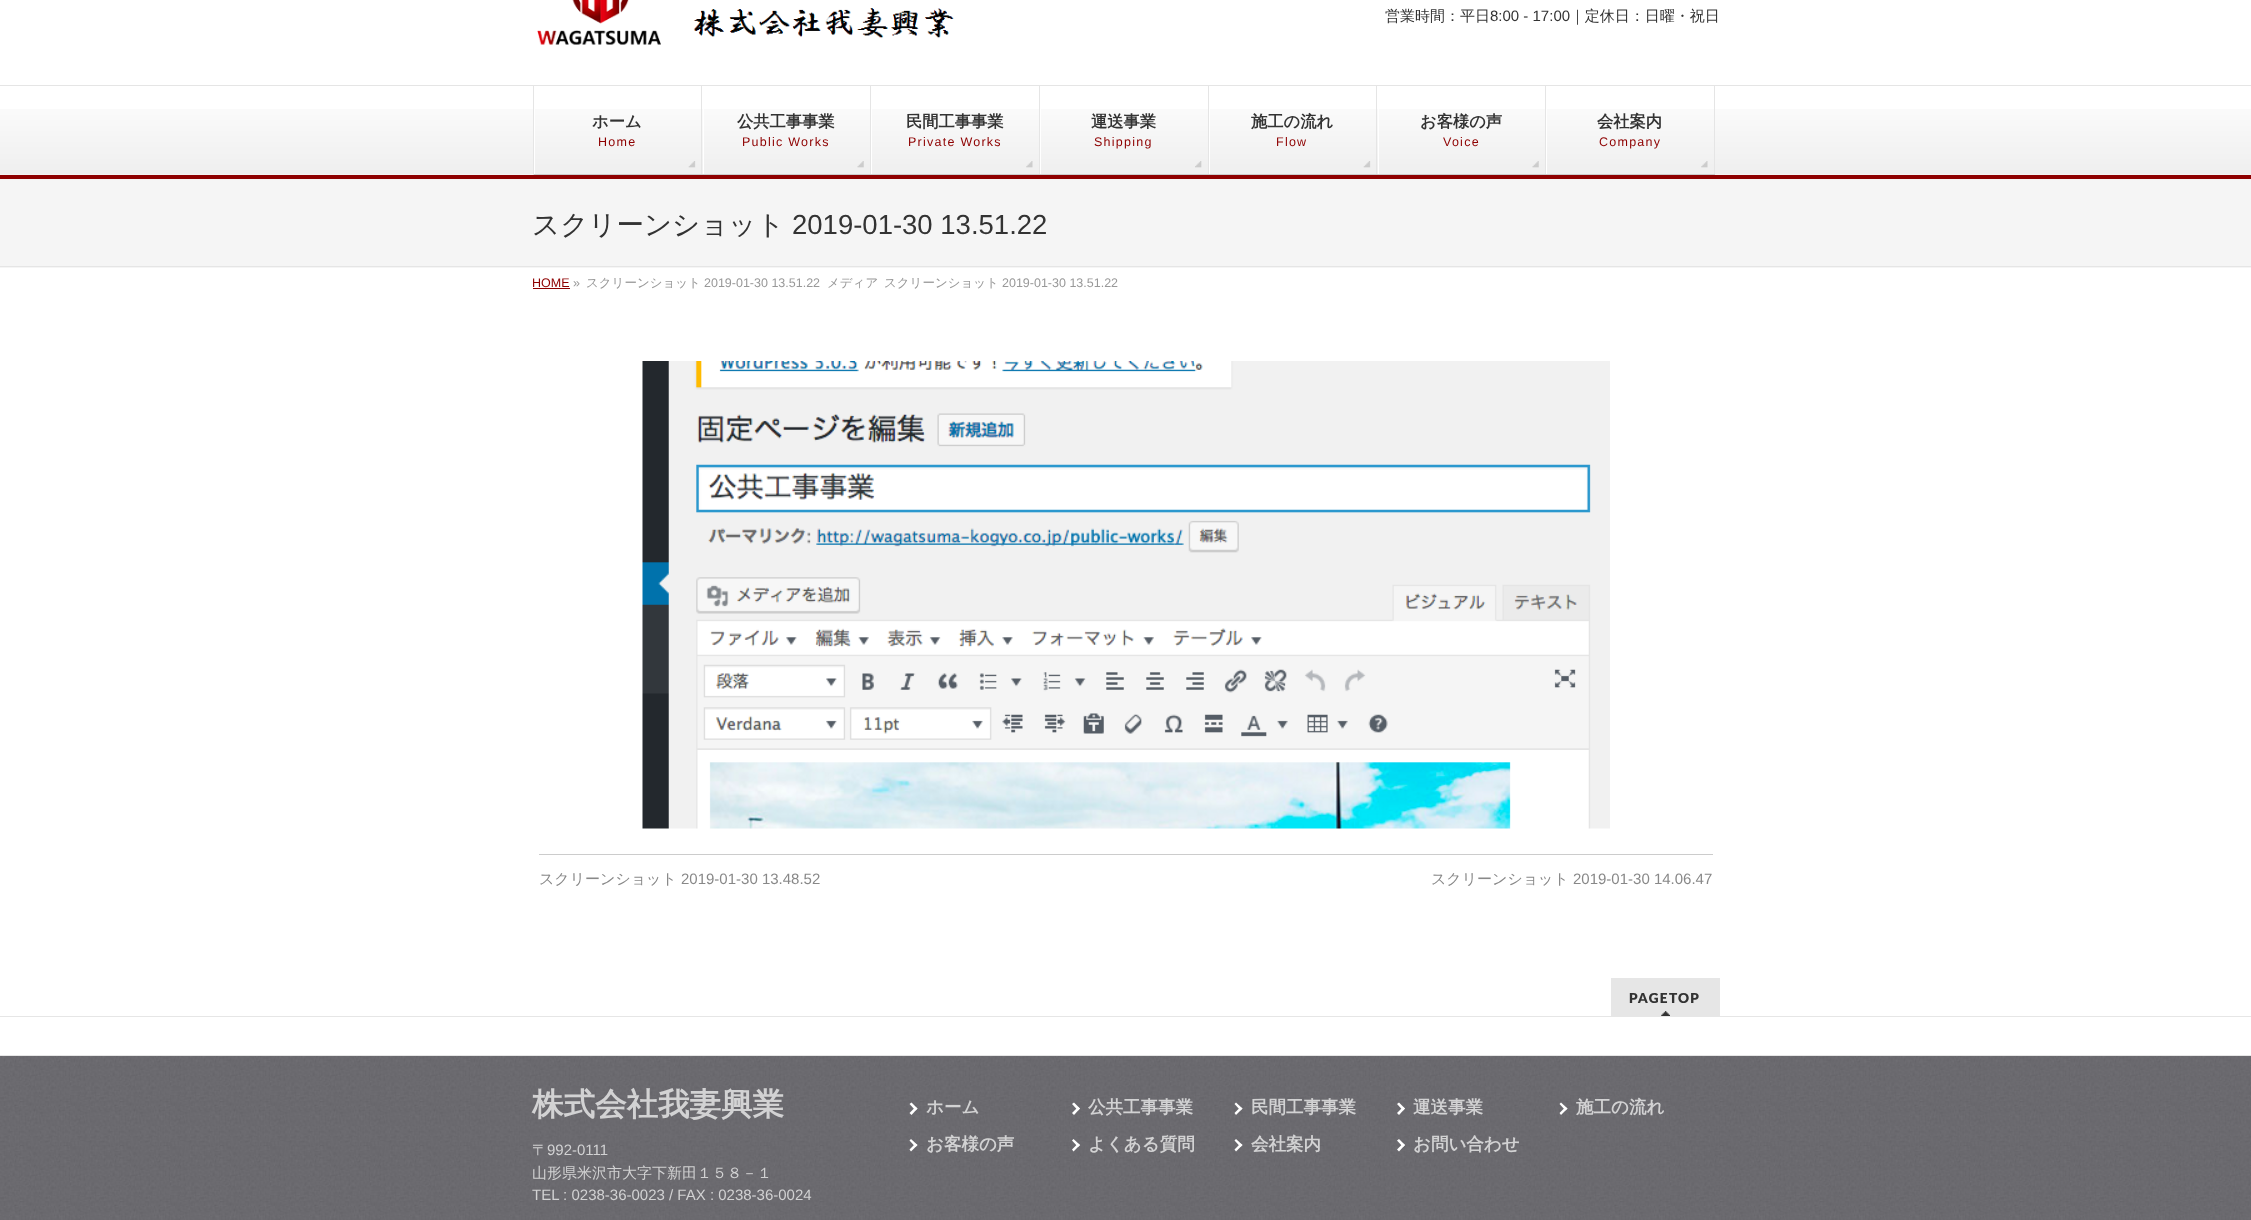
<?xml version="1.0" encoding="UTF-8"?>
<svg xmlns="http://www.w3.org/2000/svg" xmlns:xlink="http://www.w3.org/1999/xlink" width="2251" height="1220">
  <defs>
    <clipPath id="clip1"><rect x="533" y="268" width="1187" height="42" /></clipPath>
  </defs>
  <rect width="100%" height="100%" fill="#ffffff" />
  <image x="537" y="0" width="417" height="45" xlink:href="image1.png" />
  <image x="0" y="109" width="2251" height="66" xlink:href="image2.png" />
  <rect y="85" width="2251" height="1" fill="#e5e5e5" />
  <rect y="175" width="2251" height="4" fill="#8e0000" />
  <rect x="533" y="86" width="1" height="89" fill="#e5e5e5" />
  <rect x="534" y="109" width="1" height="66" fill="#ffffff" />
  <image x="688" y="161" width="8" height="7" xlink:href="image3.png" />
  <rect x="701" y="86" width="1" height="89" fill="#e5e5e5" />
  <rect x="534" y="174" width="169" height="1" fill="#cccccc" />
  <rect x="703" y="109" width="1" height="66" fill="#ffffff" />
  <image x="857" y="161" width="7" height="7" xlink:href="image4.png" />
  <rect x="870" y="86" width="1" height="89" fill="#e5e5e5" />
  <rect x="703" y="174" width="168" height="1" fill="#cccccc" />
  <rect x="871" y="109" width="1" height="66" fill="#ffffff" />
  <image x="1026" y="161" width="7" height="7" xlink:href="image5.png" />
  <rect x="1039" y="86" width="1" height="89" fill="#e5e5e5" />
  <rect x="871" y="174" width="169" height="1" fill="#cccccc" />
  <rect x="1040" y="109" width="1" height="66" fill="#ffffff" />
  <image x="1195" y="161" width="7" height="7" xlink:href="image6.png" />
  <rect x="1208" y="86" width="1" height="89" fill="#e5e5e5" />
  <rect x="1040" y="174" width="169" height="1" fill="#cccccc" />
  <rect x="1209" y="109" width="1" height="66" fill="#ffffff" />
  <image x="1363" y="161" width="8" height="7" xlink:href="image3.png" />
  <rect x="1376" y="86" width="1" height="89" fill="#e5e5e5" />
  <rect x="1209" y="174" width="169" height="1" fill="#cccccc" />
  <rect x="1378" y="109" width="1" height="66" fill="#ffffff" />
  <image x="1532" y="161" width="7" height="7" xlink:href="image7.png" />
  <rect x="1545" y="86" width="1" height="89" fill="#e5e5e5" />
  <rect x="1378" y="174" width="168" height="1" fill="#cccccc" />
  <rect x="1546" y="109" width="1" height="66" fill="#ffffff" />
  <image x="1701" y="161" width="7" height="7" xlink:href="image5.png" />
  <rect x="1714" y="86" width="1" height="89" fill="#e5e5e5" />
  <rect x="1546" y="174" width="169" height="1" fill="#cccccc" />
  <rect y="179" width="2251" height="89" fill="#f5f5f5" />
  <rect y="266" width="2251" height="1" fill="#e5e5e5" />
  <rect x="533" y="288" width="37" height="1" fill="#8e0000" />
  <image x="642" y="361" width="968" height="468" xlink:href="image8.png" />
  <rect x="539" y="854" width="1174" height="1" fill="#cccccc" />
  <rect x="1611" y="978" width="109" height="38" fill="#e6e6e6" />
  <image x="1661" y="1011" width="9" height="5" xlink:href="image9.png" />
  <rect y="1016" width="2251" height="1" fill="#e6e6e6" />
  <rect y="1055" width="2251" height="1" fill="#e6e6e6" />
  <image x="0" y="1056" width="2251" height="164" xlink:href="image10.png" />
  <path d="M 911.5 1102.5 l 6 6 l -2 2 l -6 -6.5 z" fill="#ffffff" />
  <path d="M 915.5 1107 l 2 1.5 l -6 6.5 l -2 -2 z" fill="#ffffff" />
  <path d="M 1074 1102.5 l 6 6 l -2 2 l -6 -6.5 z" fill="#ffffff" />
  <path d="M 1078 1107 l 2 1.5 l -6 6.5 l -2 -2 z" fill="#ffffff" />
  <path d="M 1236 1102.5 l 6.5 6 l -2 2 l -6 -6.5 z" fill="#ffffff" />
  <path d="M 1240.5 1107 l 2 1.5 l -6.5 6.5 l -1.5 -2 z" fill="#ffffff" />
  <path d="M 1399 1102.5 l 6 6 l -2 2 l -6 -6.5 z" fill="#ffffff" />
  <path d="M 1403 1107 l 2 1.5 l -6 6.5 l -2 -2 z" fill="#ffffff" />
  <path d="M 1561 1102.5 l 6.5 6 l -2 2 l -6 -6.5 z" fill="#ffffff" />
  <path d="M 1565.5 1107 l 2 1.5 l -6.5 6.5 l -1.5 -2 z" fill="#ffffff" />
  <path d="M 911 1139 l 6.5 6 l -2 2 l -6 -6.5 z" fill="#ffffff" />
  <path d="M 915.5 1143.5 l 2 1.5 l -6.5 6.5 l -1.5 -2 z" fill="#ffffff" />
  <path d="M 1073.5 1139 l 6.5 6 l -2 2 l -6 -6.5 z" fill="#ffffff" />
  <path d="M 1078 1143.5 l 2 1.5 l -6.5 6.5 l -1.5 -2 z" fill="#ffffff" />
  <path d="M 1236 1139 l 6.5 6 l -2 2 l -6 -6.5 z" fill="#ffffff" />
  <path d="M 1240.5 1143.5 l 2 1.5 l -6.5 6.5 l -1.5 -2 z" fill="#ffffff" />
  <path d="M 1399 1139 l 6 6 l -2 2 l -6 -6.5 z" fill="#ffffff" />
  <path d="M 1403 1143.5 l 2 1.5 l -6 6.5 l -2 -2 z" fill="#ffffff" />
  <text x="1385" y="21" style="font-family: WenQuanYi Zen Hei; font-size: 15px; font-weight: 500; fill: #333333">営業時間：平日</text>
  <text x="1490" y="21" style="font-family: Liberation Sans; font-size: 15px; fill: #333333">8:00 - 17:00</text>
  <text x="1570" y="21" style="font-family: WenQuanYi Zen Hei; font-size: 15px; font-weight: 500; fill: #333333">｜定休日：日曜・祝日</text>
  <text x="592" y="127" style="font-family: WenQuanYi Zen Hei; font-size: 16.25px; font-weight: bold; fill: #333333">ホーム</text>
  <text x="598" y="146" style="font-family: Liberation Sans; font-size: 12.5px; letter-spacing: 1.25px; fill: #8e0000">Home</text>
  <text x="737" y="127" style="font-family: WenQuanYi Zen Hei; font-size: 16.25px; font-weight: bold; fill: #333333">公共工事事業</text>
  <text x="742" y="146" style="font-family: Liberation Sans; font-size: 12.5px; letter-spacing: 1.25px; fill: #8e0000">Public Works</text>
  <text x="906" y="127" style="font-family: WenQuanYi Zen Hei; font-size: 16.25px; font-weight: bold; fill: #333333">民間工事事業</text>
  <text x="908" y="146" style="font-family: Liberation Sans; font-size: 12.5px; letter-spacing: 1.25px; fill: #8e0000">Private Works</text>
  <text x="1091" y="127" style="font-family: WenQuanYi Zen Hei; font-size: 16.25px; font-weight: bold; fill: #333333">運送事業</text>
  <text x="1094" y="146" style="font-family: Liberation Sans; font-size: 12.5px; letter-spacing: 1.25px; fill: #8e0000">Shipping</text>
  <text x="1251" y="127" style="font-family: WenQuanYi Zen Hei; font-size: 16.25px; font-weight: bold; fill: #333333">施工の流れ</text>
  <text x="1276" y="146" style="font-family: Liberation Sans; font-size: 12.5px; letter-spacing: 1.25px; fill: #8e0000">Flow</text>
  <text x="1420" y="127" style="font-family: WenQuanYi Zen Hei; font-size: 16.25px; font-weight: bold; fill: #333333">お客様の声</text>
  <text x="1443" y="146" style="font-family: Liberation Sans; font-size: 12.5px; letter-spacing: 1.25px; fill: #8e0000">Voice</text>
  <text x="1597" y="127" style="font-family: WenQuanYi Zen Hei; font-size: 16.25px; font-weight: bold; fill: #333333">会社案内</text>
  <text x="1599" y="146" style="font-family: Liberation Sans; font-size: 12.5px; letter-spacing: 1.25px; fill: #8e0000">Company</text>
  <text x="532" y="234" style="font-family: WenQuanYi Zen Hei; font-size: 27.5px; font-weight: 500; fill: #333333">スクリーンショット</text>
  <text x="792" y="234" style="font-family: Liberation Sans; font-size: 27.5px; fill: #333333">2019-01-30 13.51.22</text>
  <g clip-path="url(#clip1)">
    <text x="532" y="287" style="font-family: Liberation Sans; font-size: 12.5px; fill: #8e0000">HOME</text>
  </g>
  <text x="573" y="287" style="font-family: Liberation Sans; font-size: 12.5px; fill: #999999">»</text>
  <text x="586" y="287" style="font-family: WenQuanYi Zen Hei; font-size: 12.5px; font-weight: 500; fill: #999999">スクリーンショット</text>
  <text x="704" y="287" style="font-family: Liberation Sans; font-size: 12.5px; fill: #999999">2019-01-30 13.51.22</text>
  <text x="827" y="287" style="font-family: WenQuanYi Zen Hei; font-size: 12.5px; font-weight: 500; fill: #999999">メディア</text>
  <text x="884" y="287" style="font-family: WenQuanYi Zen Hei; font-size: 12.5px; font-weight: 500; fill: #999999">スクリーンショット</text>
  <text x="1002" y="287" style="font-family: Liberation Sans; font-size: 12.5px; fill: #999999">2019-01-30 13.51.22</text>
  <text x="539" y="884" style="font-family: WenQuanYi Zen Hei; font-size: 15px; font-weight: 500; fill: #888888">スクリーンショット</text>
  <text x="681" y="884" style="font-family: Liberation Sans; font-size: 15px; fill: #888888">2019-01-30 13.48.52</text>
  <text x="1431" y="884" style="font-family: WenQuanYi Zen Hei; font-size: 15px; font-weight: 500; fill: #888888">スクリーンショット</text>
  <text x="1573" y="884" style="font-family: Liberation Sans; font-size: 15px; fill: #888888">2019-01-30 14.06.47</text>
  <text x="1629" y="1003" style="font-family: Lato; font-size: 13.75px; font-weight: 900; letter-spacing: 1.25px; fill: #333333">PAGETOP</text>
  <text x="532" y="1115" style="font-family: WenQuanYi Zen Hei; font-size: 31.5px; font-weight: bold; fill: #d2d2d3">株式会社我妻興業</text>
  <text x="532" y="1155" style="font-family: WenQuanYi Zen Hei; font-size: 15px; font-weight: 500; fill: #d2d2d3">〒</text>
  <text x="547" y="1155" style="font-family: Liberation Sans; font-size: 15px; fill: #d2d2d3">992-0111</text>
  <text x="532" y="1178" style="font-family: WenQuanYi Zen Hei; font-size: 15px; font-weight: 500; fill: #d2d2d3">山形県米沢市大字下新田１５８－１</text>
  <text x="532" y="1200" style="font-family: Liberation Sans; font-size: 15px; fill: #d2d2d3">TEL : 0238-36-0023 / FAX : 0238-36-0024</text>
  <text x="926" y="1113" style="font-family: WenQuanYi Zen Hei; font-size: 17.5px; font-weight: bold; fill: #d2d2d3">ホーム</text>
  <text x="1088" y="1113" style="font-family: WenQuanYi Zen Hei; font-size: 17.5px; font-weight: bold; fill: #d2d2d3">公共工事事業</text>
  <text x="1251" y="1113" style="font-family: WenQuanYi Zen Hei; font-size: 17.5px; font-weight: bold; fill: #d2d2d3">民間工事事業</text>
  <text x="1413" y="1113" style="font-family: WenQuanYi Zen Hei; font-size: 17.5px; font-weight: bold; fill: #d2d2d3">運送事業</text>
  <text x="1576" y="1113" style="font-family: WenQuanYi Zen Hei; font-size: 17.5px; font-weight: bold; fill: #d2d2d3">施工の流れ</text>
  <text x="926" y="1150" style="font-family: WenQuanYi Zen Hei; font-size: 17.5px; font-weight: bold; fill: #d2d2d3">お客様の声</text>
  <text x="1088" y="1150" style="font-family: WenQuanYi Zen Hei; font-size: 17.5px; font-weight: bold; fill: #d2d2d3">よくある質問</text>
  <text x="1251" y="1150" style="font-family: WenQuanYi Zen Hei; font-size: 17.5px; font-weight: bold; fill: #d2d2d3">会社案内</text>
  <text x="1413" y="1150" style="font-family: WenQuanYi Zen Hei; font-size: 17.5px; font-weight: bold; fill: #d2d2d3">お問い合わせ</text>
</svg>
